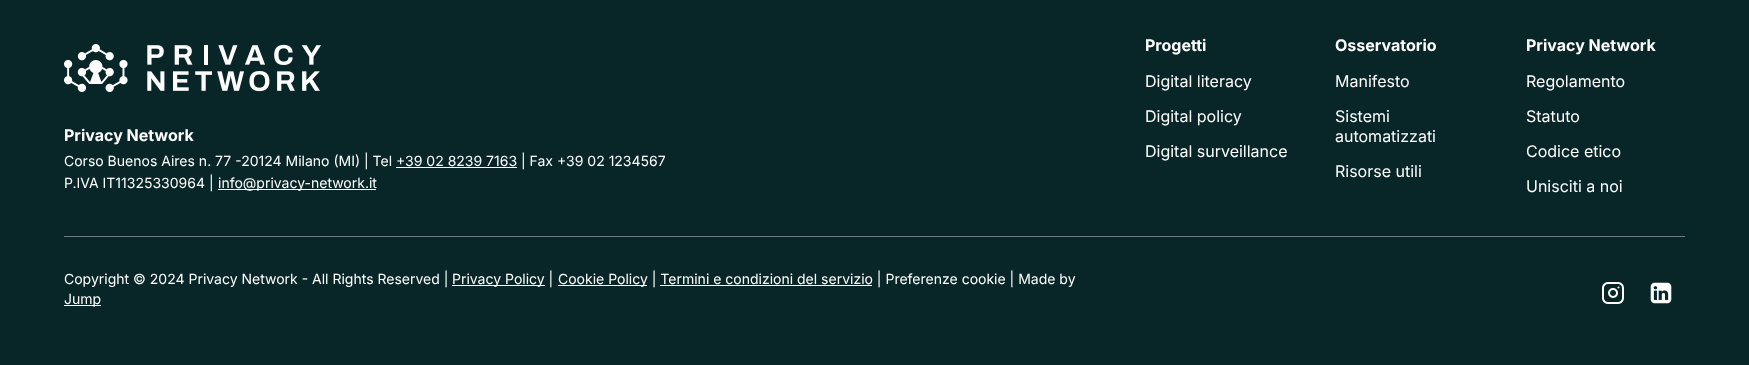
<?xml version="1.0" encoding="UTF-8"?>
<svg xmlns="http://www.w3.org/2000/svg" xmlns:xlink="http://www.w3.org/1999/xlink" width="1749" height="365">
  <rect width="100%" height="100%" fill="#082628" />
  <image x="64" y="44" width="257" height="48" xlink:href="image1.png" />
  <rect x="396" y="167" width="121" height="1" fill="#ffffff" />
  <rect x="218" y="189" width="158" height="1" fill="#ffffff" />
  <rect x="64" y="236" width="1621" height="1" fill="#6b7d7e" />
  <rect x="452" y="285" width="93" height="1" fill="#ffffff" />
  <rect x="558" y="285" width="89" height="1" fill="#ffffff" />
  <rect x="660" y="285" width="212" height="1" fill="#ffffff" />
  <rect x="64" y="305" width="37" height="1" fill="#ffffff" />
  <image x="1602" y="282" width="22" height="22" xlink:href="image2.png" />
  <image x="1650" y="282" width="22" height="22" xlink:href="image3.png" />
  <text x="64" y="141" style="font-family: Inter; font-size: 16px; font-weight: bold; fill: #ffffff">Privacy Network</text>
  <text x="64" y="166" style="font-family: Inter; font-size: 14px; fill: #ffffff">Corso Buenos Aires n. 77 -20124 Milano (MI) | Tel +39 02 8239 7163 | Fax +39 02 1234567</text>
  <text x="64" y="188" style="font-family: Inter; font-size: 14px; fill: #ffffff">P.IVA IT11325330964 |</text>
  <text x="218" y="188" style="font-family: Inter; font-size: 14px; fill: #ffffff">info@privacy-network.it</text>
  <text x="1145" y="51" style="font-family: Inter; font-size: 16px; font-weight: bold; fill: #ffffff">Progetti</text>
  <text x="1145" y="87" style="font-family: Inter; font-size: 16px; fill: #ffffff">Digital literacy</text>
  <text x="1145" y="122" style="font-family: Inter; font-size: 16px; fill: #ffffff">Digital policy</text>
  <text x="1145" y="157" style="font-family: Inter; font-size: 16px; fill: #ffffff">Digital surveillance</text>
  <text x="1335" y="51" style="font-family: Inter; font-size: 16px; font-weight: bold; fill: #ffffff">Osservatorio</text>
  <text x="1335" y="87" style="font-family: Inter; font-size: 16px; fill: #ffffff">Manifesto</text>
  <text x="1335" y="122" style="font-family: Inter; font-size: 16px; fill: #ffffff">Sistemi</text>
  <text x="1335" y="142" style="font-family: Inter; font-size: 16px; fill: #ffffff">automatizzati</text>
  <text x="1335" y="177" style="font-family: Inter; font-size: 16px; fill: #ffffff">Risorse utili</text>
  <text x="1526" y="51" style="font-family: Inter; font-size: 16px; font-weight: bold; fill: #ffffff">Privacy Network</text>
  <text x="1526" y="87" style="font-family: Inter; font-size: 16px; fill: #ffffff">Regolamento</text>
  <text x="1526" y="122" style="font-family: Inter; font-size: 16px; fill: #ffffff">Statuto</text>
  <text x="1526" y="157" style="font-family: Inter; font-size: 16px; fill: #ffffff">Codice etico</text>
  <text x="1526" y="192" style="font-family: Inter; font-size: 16px; fill: #ffffff">Unisciti a noi</text>
  <text x="64" y="284" style="font-family: Inter; font-size: 14px; fill: #ffffff">Copyright © 2024 Privacy Network - All Rights Reserved |</text>
  <text x="452" y="284" style="font-family: Inter; font-size: 14px; fill: #ffffff">Privacy Policy |</text>
  <text x="558" y="284" style="font-family: Inter; font-size: 14px; fill: #ffffff">Cookie Policy | Termini e condizioni del servizio | Preferenze cookie | Made by</text>
  <text x="64" y="304" style="font-family: Inter; font-size: 14px; fill: #ffffff">Jump</text>
</svg>
